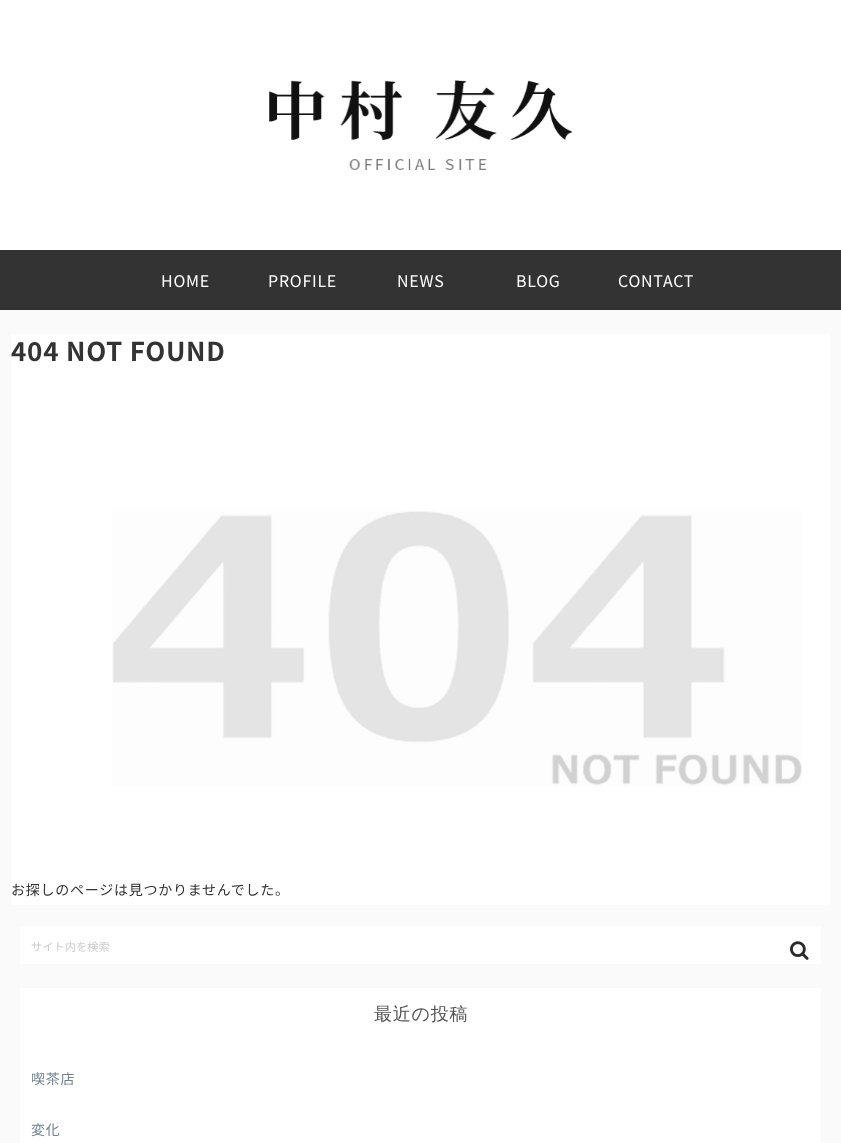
<?xml version="1.0" encoding="UTF-8"?>
<svg xmlns="http://www.w3.org/2000/svg" xmlns:xlink="http://www.w3.org/1999/xlink" width="841" height="1143">
  <rect width="100%" height="100%" fill="#fafafa" />
  <rect width="841" height="250" fill="#ffffff" />
  <image x="269" y="80" width="303" height="90" xlink:href="image1.png" />
  <rect y="250" width="841" height="60" fill="#333333" />
  <rect x="11" y="334" width="819" height="571" fill="#ffffff" />
  <image x="112" y="511" width="690" height="276" xlink:href="image2.png" />
  <rect x="20" y="926" width="801" height="38" fill="#ffffff" />
  <image x="790" y="941" width="19" height="19" xlink:href="image3.png" />
  <rect x="20" y="988" width="801" height="155" fill="#ffffff" />
  <text x="161" y="287" style="font-family: Noto Sans JP; font-size: 16px; letter-spacing: 0.75px; fill: #ffffff">HOME</text>
  <text x="268" y="287" style="font-family: Noto Sans JP; font-size: 16px; letter-spacing: 0.75px; fill: #ffffff">PROFILE</text>
  <text x="397" y="287" style="font-family: Noto Sans JP; font-size: 16px; letter-spacing: 0.75px; fill: #ffffff">NEWS</text>
  <text x="516" y="287" style="font-family: Noto Sans JP; font-size: 16px; letter-spacing: 0.75px; fill: #ffffff">BLOG</text>
  <text x="618" y="287" style="font-family: Noto Sans JP; font-size: 16px; letter-spacing: 0.75px; fill: #ffffff">CONTACT</text>
  <text x="11" y="361" style="font-family: Noto Sans JP; font-size: 26px; font-weight: bold; letter-spacing: 0.75px; fill: #333333">404 NOT FOUND</text>
  <text x="11" y="895" style="font-family: Noto Sans JP; font-size: 14px; letter-spacing: 0.75px; fill: #333333">お探しのページは見つかりませんでした。</text>
  <text x="31" y="951" style="font-family: Noto Sans JP; font-size: 11.25px; fill: #cccccc">サイト内を検索</text>
  <text x="374" y="1020" style="font-family: WenQuanYi Zen Hei; font-size: 18px; font-weight: 500; letter-spacing: 0.75px; fill: #545454">最近の投稿</text>
  <text x="31" y="1084" style="font-family: Noto Sans JP; font-size: 14px; letter-spacing: 0.75px; fill: #708090">喫茶店</text>
  <text x="31" y="1135" style="font-family: Noto Sans JP; font-size: 14px; letter-spacing: 0.75px; fill: #708090">変化</text>
</svg>
